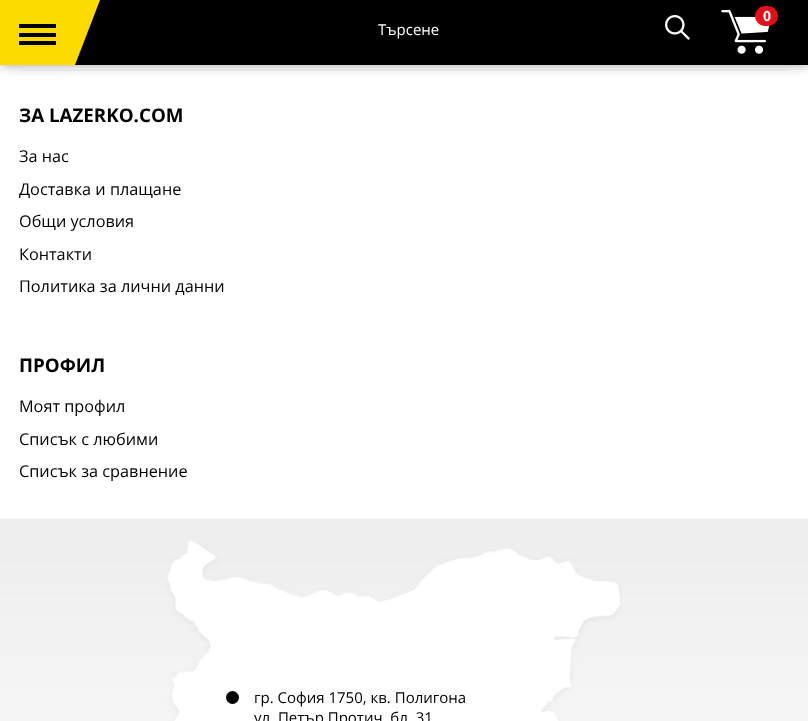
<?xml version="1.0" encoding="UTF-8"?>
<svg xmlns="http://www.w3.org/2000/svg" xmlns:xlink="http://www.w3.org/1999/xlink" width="808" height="721">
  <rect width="100%" height="100%" fill="#ffffff" />
  <rect x="19" y="70" width="771" height="1" fill="#f1f1f1" />
  <rect width="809" height="65" fill="#000000" fill-opacity="0.36" filter="blur(6px)" />
  <rect x="75" width="733" height="65" fill="#000000" />
  <rect width="75" height="65" fill="#fedb00" />
  <rect x="19" y="33" width="37" height="4" fill="#000000" />
  <rect x="19" y="41" width="37" height="4" fill="#000000" />
  <rect x="19" y="24" width="37" height="4" fill="#000000" />
  <path d="M 75 0 h 25 l -25 65 z" fill="#fedb00" />
  <image x="721" y="10" width="49" height="44" xlink:href="image1.png" />
  <rect x="755" y="6" width="23" height="20" rx="10" fill="#e30f1b" />
  <image x="665" y="15" width="25" height="25" xlink:href="image2.png" />
  <image x="0" y="518" width="790" height="203" xlink:href="image3.png" />
  <image x="167" y="541" width="455" height="180" xlink:href="image4.png" />
  <image x="790" y="518" width="18" height="203" xlink:href="image5.png" />
  <circle cx="232.5" cy="697.5" r="6.5" fill="#000000" />
  <text x="763" y="21" style="font-family: Open Sans; font-size: 14px; font-weight: bold; fill: #ffffff">0</text>
  <text x="378" y="35" style="font-family: Open Sans; font-size: 15px; fill: #ffffff">Търсене</text>
  <text x="19" y="122" style="font-family: Open Sans; font-size: 18.75px; font-weight: bold; fill: #000000">ЗА LAZERKO.COM</text>
  <text x="19" y="162" style="font-family: Open Sans; font-size: 16.25px; fill: #000000">За нас</text>
  <text x="19" y="195" style="font-family: Open Sans; font-size: 16.25px; fill: #000000">Доставка и плащане</text>
  <text x="19" y="227" style="font-family: Open Sans; font-size: 16.25px; fill: #000000">Общи условия</text>
  <text x="19" y="260" style="font-family: Open Sans; font-size: 16.25px; fill: #000000">Контакти</text>
  <text x="19" y="292" style="font-family: Open Sans; font-size: 16.25px; fill: #000000">Политика за лични данни</text>
  <text x="19" y="372" style="font-family: Open Sans; font-size: 18.75px; font-weight: bold; fill: #000000">ПРОФИЛ</text>
  <text x="19" y="412" style="font-family: Open Sans; font-size: 16.25px; fill: #000000">Моят профил</text>
  <text x="19" y="445" style="font-family: Open Sans; font-size: 16.25px; fill: #000000">Списък с любими</text>
  <text x="19" y="477" style="font-family: Open Sans; font-size: 16.25px; fill: #000000">Списък за сравнение</text>
  <text x="254" y="703" style="font-family: Open Sans; font-size: 15px; fill: #000000">гр. София 1750, кв. Полигона</text>
  <text x="254" y="723" style="font-family: Open Sans; font-size: 15px; fill: #000000">ул. Петър Протич, бл. 31</text>
</svg>
